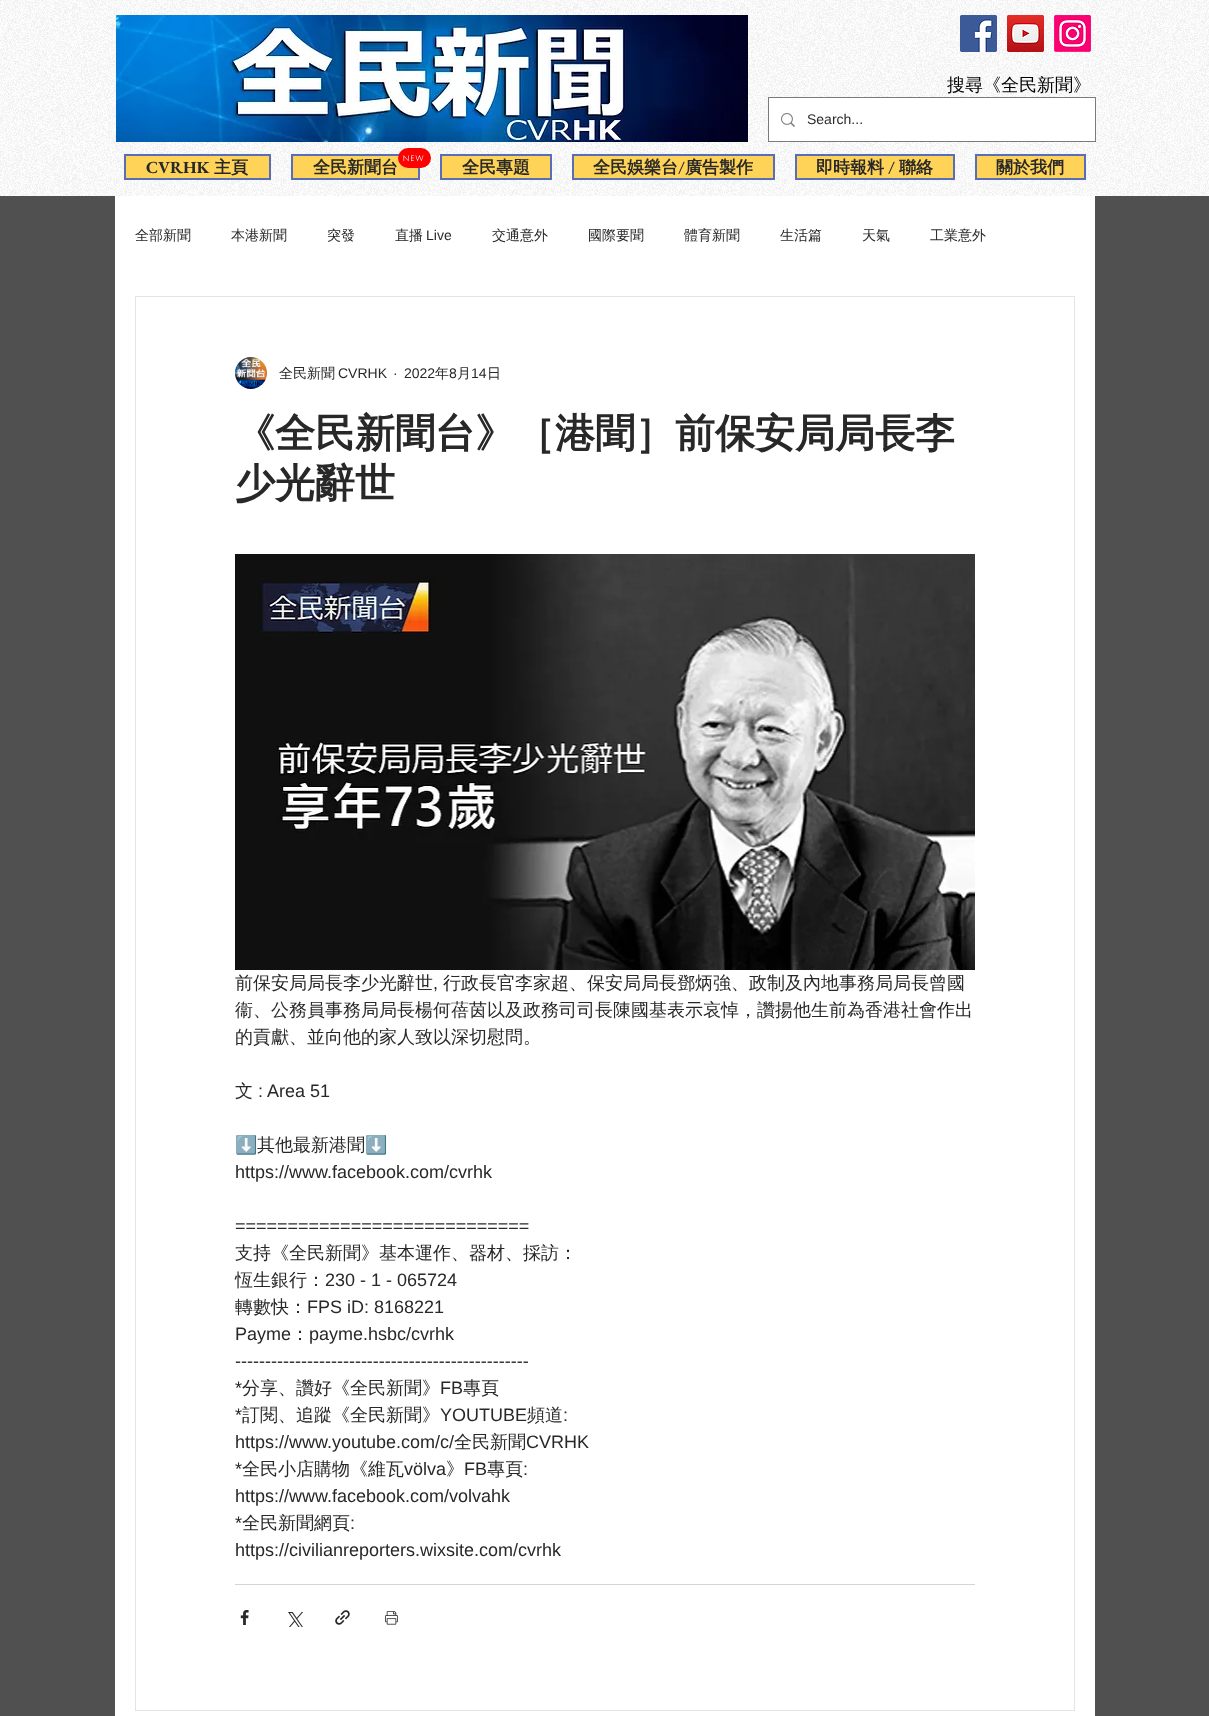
<?xml version="1.0" encoding="UTF-8"?>
<svg xmlns="http://www.w3.org/2000/svg" xmlns:xlink="http://www.w3.org/1999/xlink" width="1209" height="1716">
  <rect width="100%" height="100%" fill="#515050" />
  <rect width="1209" height="196" fill="#ffffff" />
  <image x="0" y="0" width="1209" height="196" xlink:href="image1.png" />
  <image x="116" y="15" width="632" height="127" xlink:href="image2.png" />
  <image x="960" y="15" width="37" height="37" xlink:href="image3.png" />
  <image x="1007" y="15" width="37" height="37" xlink:href="image4.png" />
  <image x="1054" y="15" width="37" height="37" xlink:href="image5.png" />
  <rect x="768.5" y="97.5" width="327" height="44" fill="none" stroke="#282828" stroke-opacity="0.6" />
  <rect x="769" y="98" width="326" height="43" fill="#ffffff" />
  <image x="781" y="113" width="14" height="14" xlink:href="image6.png" />
  <rect x="292" y="155" width="127" height="24" fill="#ffd358" stroke="#566fb8" stroke-width="2" />
  <rect x="398" y="148" width="33" height="20" rx="10" fill="#ff0000" />
  <rect x="125" y="155" width="145" height="24" fill="#ffd358" stroke="#566fb8" stroke-width="2" />
  <rect x="441" y="155" width="110" height="24" fill="#ffd358" stroke="#566fb8" stroke-width="2" />
  <rect x="573" y="155" width="201" height="24" fill="#ffd358" stroke="#566fb8" stroke-width="2" />
  <rect x="796" y="155" width="158" height="24" fill="#ffd358" stroke="#566fb8" stroke-width="2" />
  <rect x="976" y="155" width="109" height="24" fill="#ffd358" stroke="#566fb8" stroke-width="2" />
  <rect x="115" y="196" width="980" height="1520" fill="#ffffff" />
  <rect x="135.5" y="296.5" width="939" height="1414" fill="none" stroke="#e4e4e4" />
  <image x="235" y="357" width="32" height="32" xlink:href="image7.png" />
  <image x="235" y="554" width="740" height="416" xlink:href="image8.png" />
  <rect x="235" y="1584" width="740" height="1" fill="#d4d4d4" />
  <image x="240" y="1610" width="9" height="15" xlink:href="image9.png" />
  <image x="288" y="1612" width="15" height="15" xlink:href="image10.png" />
  <image x="335" y="1610" width="15" height="15" xlink:href="image11.png" />
  <image x="385" y="1611" width="13" height="14" xlink:href="image12.png" />
  <text x="947" y="91" style="font-family: WenQuanYi Zen Hei; font-size: 18px; font-weight: 500; fill: #000000">搜尋《全民新聞》</text>
  <text x="807" y="124" style="font-family: Liberation Sans; font-size: 14px; fill: #282828">Search...</text>
  <text x="403" y="161" style="font-family: futura; font-size: 7px; font-weight: bold; letter-spacing: 1.5px; fill: #ffffff">NEW</text>
  <text x="146" y="173" style="font-family: EB Garamond; font-size: 17px; font-weight: bold; fill: #282828">CVRHK</text>
  <text x="214" y="173" style="font-family: WenQuanYi Zen Hei; font-size: 17px; font-weight: bold; fill: #282828">主頁</text>
  <text x="313" y="173" style="font-family: WenQuanYi Zen Hei; font-size: 17px; font-weight: bold; fill: #282828">全民新聞台</text>
  <text x="462" y="173" style="font-family: WenQuanYi Zen Hei; font-size: 17px; font-weight: bold; fill: #282828">全民專題</text>
  <text x="593" y="173" style="font-family: WenQuanYi Zen Hei; font-size: 17px; font-weight: bold; fill: #282828">全民娛樂台</text>
  <text x="678" y="173" style="font-family: EB Garamond; font-size: 17px; font-weight: bold; fill: #282828">/</text>
  <text x="685" y="173" style="font-family: WenQuanYi Zen Hei; font-size: 17px; font-weight: bold; fill: #282828">廣告製作</text>
  <text x="816" y="173" style="font-family: WenQuanYi Zen Hei; font-size: 17px; font-weight: bold; fill: #282828">即時報料</text>
  <text x="888" y="173" style="font-family: EB Garamond; font-size: 17px; font-weight: bold; fill: #282828">/</text>
  <text x="899" y="173" style="font-family: WenQuanYi Zen Hei; font-size: 17px; font-weight: bold; fill: #282828">聯絡</text>
  <text x="996" y="173" style="font-family: WenQuanYi Zen Hei; font-size: 17px; font-weight: bold; fill: #282828">關於我們</text>
  <text x="135" y="240" style="font-family: WenQuanYi Zen Hei; font-size: 14px; font-weight: 500; fill: #282828">全部新聞</text>
  <text x="231" y="240" style="font-family: WenQuanYi Zen Hei; font-size: 14px; font-weight: 500; fill: #282828">本港新聞</text>
  <text x="327" y="240" style="font-family: WenQuanYi Zen Hei; font-size: 14px; font-weight: 500; fill: #282828">突發</text>
  <text x="395" y="240" style="font-family: WenQuanYi Zen Hei; font-size: 14px; font-weight: 500; fill: #282828">直播</text>
  <text x="426" y="240" style="font-family: Liberation Sans; font-size: 14px; fill: #282828">Live</text>
  <text x="492" y="240" style="font-family: WenQuanYi Zen Hei; font-size: 14px; font-weight: 500; fill: #282828">交通意外</text>
  <text x="588" y="240" style="font-family: WenQuanYi Zen Hei; font-size: 14px; font-weight: 500; fill: #282828">國際要聞</text>
  <text x="684" y="240" style="font-family: WenQuanYi Zen Hei; font-size: 14px; font-weight: 500; fill: #282828">體育新聞</text>
  <text x="780" y="240" style="font-family: WenQuanYi Zen Hei; font-size: 14px; font-weight: 500; fill: #282828">生活篇</text>
  <text x="862" y="240" style="font-family: WenQuanYi Zen Hei; font-size: 14px; font-weight: 500; fill: #282828">天氣</text>
  <text x="930" y="240" style="font-family: WenQuanYi Zen Hei; font-size: 14px; font-weight: 500; fill: #282828">工業意外</text>
  <text x="279" y="378" style="font-family: WenQuanYi Zen Hei; font-size: 14px; font-weight: 500; fill: #282828">全民新聞</text>
  <text x="338" y="378" style="font-family: Liberation Sans; font-size: 14px; fill: #282828">CVRHK</text>
  <text x="393" y="378" style="font-family: Liberation Sans; font-size: 14px; fill: #282828">·</text>
  <text x="404" y="378" style="font-family: Liberation Sans; font-size: 14px; fill: #282828">2022</text>
  <text x="435" y="378" style="font-family: WenQuanYi Zen Hei; font-size: 14px; font-weight: 500; fill: #282828">年</text>
  <text x="449" y="378" style="font-family: Liberation Sans; font-size: 14px; fill: #282828">8</text>
  <text x="457" y="378" style="font-family: WenQuanYi Zen Hei; font-size: 14px; font-weight: 500; fill: #282828">月</text>
  <text x="471" y="378" style="font-family: Liberation Sans; font-size: 14px; fill: #282828">14</text>
  <text x="487" y="378" style="font-family: WenQuanYi Zen Hei; font-size: 14px; font-weight: 500; fill: #282828">日</text>
  <text x="235" y="447" style="font-family: WenQuanYi Zen Hei; font-size: 40px; font-weight: bold; fill: #282828">《全民新聞台》［港聞］前保安局局長李</text>
  <text x="235" y="497" style="font-family: WenQuanYi Zen Hei; font-size: 40px; font-weight: bold; fill: #282828">少光辭世</text>
  <text x="235" y="989" style="font-family: WenQuanYi Zen Hei; font-size: 18px; font-weight: 500; fill: #282828">前保安局局長李少光辭世</text>
  <text x="433" y="989" style="font-family: Liberation Sans; font-size: 18px; fill: #282828">,</text>
  <text x="443" y="989" style="font-family: WenQuanYi Zen Hei; font-size: 18px; font-weight: 500; fill: #282828">行政長官李家超、保安局局長鄧炳強、政制及內地事務局局長曾國</text>
  <text x="235" y="1016" style="font-family: WenQuanYi Zen Hei; font-size: 18px; font-weight: 500; fill: #282828">衞、公務員事務局局長楊何蓓茵以及政務司司長陳國基表示哀悼，讚揚他生前為香港社會作出</text>
  <text x="235" y="1043" style="font-family: WenQuanYi Zen Hei; font-size: 18px; font-weight: 500; fill: #282828">的貢獻、並向他的家人致以深切慰問。</text>
  <text x="235" y="1097" style="font-family: WenQuanYi Zen Hei; font-size: 18px; font-weight: 500; fill: #282828">文</text>
  <text x="258" y="1097" style="font-family: Liberation Sans; font-size: 18px; fill: #282828">: Area 51</text>
  <text x="235" y="1151" style="font-family: Noto Color Emoji; font-size: 18px; fill: #282828">⬇️</text>
  <text x="257" y="1151" style="font-family: WenQuanYi Zen Hei; font-size: 18px; font-weight: 500; fill: #282828">其他最新港聞</text>
  <text x="365" y="1151" style="font-family: Noto Color Emoji; font-size: 18px; fill: #282828">⬇️</text>
  <text x="235" y="1178" style="font-family: Liberation Sans; font-size: 18px; fill: #282828">https://www.facebook.com/cvrhk</text>
  <text x="235" y="1232" style="font-family: Liberation Sans; font-size: 18px; fill: #282828">============================</text>
  <text x="235" y="1259" style="font-family: WenQuanYi Zen Hei; font-size: 18px; font-weight: 500; fill: #282828">支持《全民新聞》基本運作、器材、採訪：</text>
  <text x="235" y="1286" style="font-family: WenQuanYi Zen Hei; font-size: 18px; font-weight: 500; fill: #282828">恆生銀行：</text>
  <text x="325" y="1286" style="font-family: Liberation Sans; font-size: 18px; fill: #282828">230 - 1 - 065724</text>
  <text x="235" y="1313" style="font-family: WenQuanYi Zen Hei; font-size: 18px; font-weight: 500; fill: #282828">轉數快：</text>
  <text x="307" y="1313" style="font-family: Liberation Sans; font-size: 18px; fill: #282828">FPS iD: 8168221</text>
  <text x="235" y="1340" style="font-family: Liberation Sans; font-size: 18px; fill: #282828">Payme</text>
  <text x="291" y="1340" style="font-family: WenQuanYi Zen Hei; font-size: 18px; font-weight: 500; fill: #282828">：</text>
  <text x="309" y="1340" style="font-family: Liberation Sans; font-size: 18px; fill: #282828">payme.hsbc/cvrhk</text>
  <text x="235" y="1367" style="font-family: Liberation Sans; font-size: 18px; fill: #282828">-------------------------------------------------</text>
  <text x="235" y="1394" style="font-family: Liberation Sans; font-size: 18px; fill: #282828">*</text>
  <text x="242" y="1394" style="font-family: WenQuanYi Zen Hei; font-size: 18px; font-weight: 500; fill: #282828">分享、讚好《全民新聞》</text>
  <text x="440" y="1394" style="font-family: Liberation Sans; font-size: 18px; fill: #282828">FB</text>
  <text x="463" y="1394" style="font-family: WenQuanYi Zen Hei; font-size: 18px; font-weight: 500; fill: #282828">專頁</text>
  <text x="235" y="1421" style="font-family: Liberation Sans; font-size: 18px; fill: #282828">*</text>
  <text x="242" y="1421" style="font-family: WenQuanYi Zen Hei; font-size: 18px; font-weight: 500; fill: #282828">訂閱、追蹤《全民新聞》</text>
  <text x="440" y="1421" style="font-family: Liberation Sans; font-size: 18px; fill: #282828">YOUTUBE</text>
  <text x="527" y="1421" style="font-family: WenQuanYi Zen Hei; font-size: 18px; font-weight: 500; fill: #282828">頻道</text>
  <text x="563" y="1421" style="font-family: Liberation Sans; font-size: 18px; fill: #282828">:</text>
  <text x="235" y="1448" style="font-family: Liberation Sans; font-size: 18px; fill: #282828">https://www.youtube.com/c/</text>
  <text x="454" y="1448" style="font-family: WenQuanYi Zen Hei; font-size: 18px; font-weight: 500; fill: #282828">全民新聞</text>
  <text x="526" y="1448" style="font-family: Liberation Sans; font-size: 18px; fill: #282828">CVRHK</text>
  <text x="235" y="1475" style="font-family: Liberation Sans; font-size: 18px; fill: #282828">*</text>
  <text x="242" y="1475" style="font-family: WenQuanYi Zen Hei; font-size: 18px; font-weight: 500; fill: #282828">全民小店購物《維瓦</text>
  <text x="404" y="1475" style="font-family: Liberation Sans; font-size: 18px; fill: #282828">völva</text>
  <text x="446" y="1475" style="font-family: WenQuanYi Zen Hei; font-size: 18px; font-weight: 500; fill: #282828">》</text>
  <text x="464" y="1475" style="font-family: Liberation Sans; font-size: 18px; fill: #282828">FB</text>
  <text x="487" y="1475" style="font-family: WenQuanYi Zen Hei; font-size: 18px; font-weight: 500; fill: #282828">專頁</text>
  <text x="523" y="1475" style="font-family: Liberation Sans; font-size: 18px; fill: #282828">:</text>
  <text x="235" y="1502" style="font-family: Liberation Sans; font-size: 18px; fill: #282828">https://www.facebook.com/volvahk</text>
  <text x="235" y="1529" style="font-family: Liberation Sans; font-size: 18px; fill: #282828">*</text>
  <text x="242" y="1529" style="font-family: WenQuanYi Zen Hei; font-size: 18px; font-weight: 500; fill: #282828">全民新聞網頁</text>
  <text x="350" y="1529" style="font-family: Liberation Sans; font-size: 18px; fill: #282828">:</text>
  <text x="235" y="1556" style="font-family: Liberation Sans; font-size: 18px; fill: #282828">https://civilianreporters.wixsite.com/cvrhk</text>
</svg>
